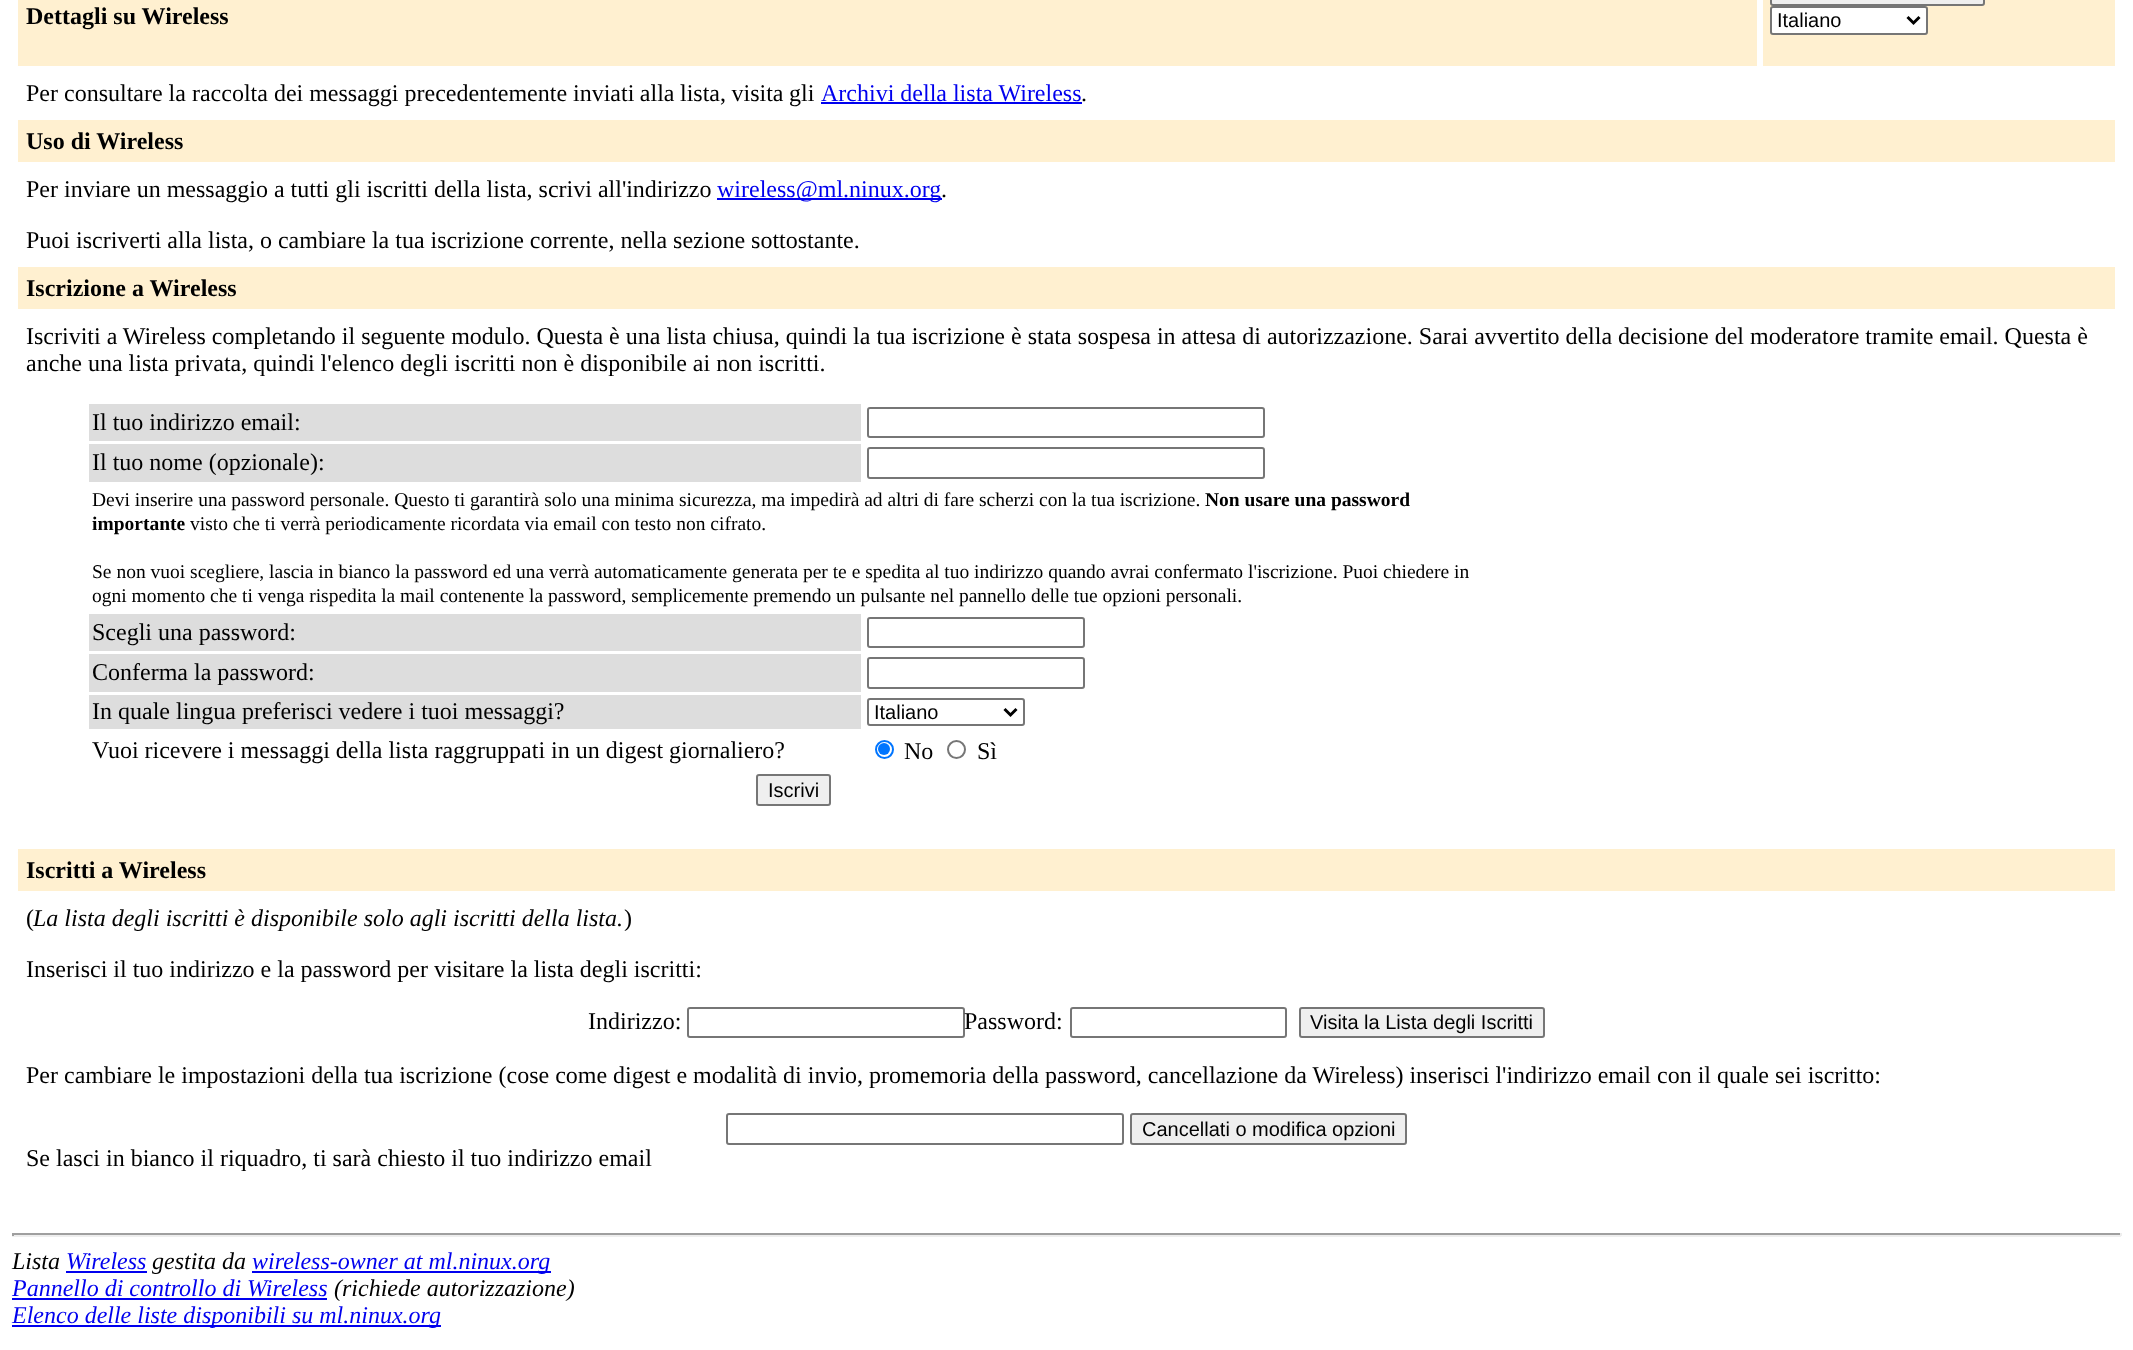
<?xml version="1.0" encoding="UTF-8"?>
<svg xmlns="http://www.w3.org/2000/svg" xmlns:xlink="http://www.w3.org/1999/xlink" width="2133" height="1350">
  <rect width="100%" height="100%" fill="#ffffff" />
  <rect x="18" width="1739" height="66" fill="#fff0d0" />
  <rect x="1763" width="352" height="66" fill="#fff0d0" />
  <rect x="1771" y="-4" width="213" height="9" rx="2" fill="#efefef" stroke="#767676" stroke-width="2" />
  <rect x="1771" y="7" width="156" height="27" rx="2" fill="#ffffff" stroke="#767676" stroke-width="2" />
  <path d="M 1907.5 17 l 6 6 l 6 -6" fill="none" stroke="#000000" stroke-width="3" />
  <rect x="821" y="102" width="261" height="2" fill="#0000ee" />
  <rect x="18" y="120" width="2097" height="42" fill="#fff0d0" />
  <rect x="717" y="198" width="225" height="2" fill="#0000ee" />
  <rect x="18" y="267" width="2097" height="42" fill="#fff0d0" />
  <rect x="89" y="404" width="772" height="37" fill="#dddddd" />
  <rect x="868" y="408" width="396" height="29" rx="2" fill="none" stroke="#767676" stroke-width="2" />
  <rect x="89" y="444" width="772" height="38" fill="#dddddd" />
  <rect x="868" y="448" width="396" height="30" rx="2" fill="none" stroke="#767676" stroke-width="2" />
  <rect x="89" y="614" width="772" height="37" fill="#dddddd" />
  <rect x="868" y="618" width="216" height="29" rx="2" fill="none" stroke="#767676" stroke-width="2" />
  <rect x="89" y="654" width="772" height="38" fill="#dddddd" />
  <rect x="868" y="658" width="216" height="30" rx="2" fill="none" stroke="#767676" stroke-width="2" />
  <rect x="89" y="695" width="772" height="34" fill="#dddddd" />
  <rect x="868" y="699" width="156" height="26" rx="2" fill="none" stroke="#767676" stroke-width="2" />
  <path d="M 1004.5 709 l 6 6 l 6 -6" fill="none" stroke="#000000" stroke-width="3" />
  <circle cx="884.5" cy="749.5" r="8.5" fill="none" stroke="#0075ff" stroke-width="2" />
  <circle cx="884" cy="749" r="6" fill="#0075ff" />
  <circle cx="956.5" cy="749.5" r="8.5" fill="none" stroke="#767676" stroke-width="2" />
  <rect x="757" y="775" width="73" height="30" rx="2" fill="#efefef" stroke="#767676" stroke-width="2" />
  <rect x="18" y="849" width="2097" height="42" fill="#fff0d0" />
  <rect x="688" y="1008" width="276" height="29" rx="2" fill="none" stroke="#767676" stroke-width="2" />
  <rect x="1071" y="1008" width="215" height="29" rx="2" fill="none" stroke="#767676" stroke-width="2" />
  <rect x="1300" y="1008" width="244" height="29" rx="2" fill="#efefef" stroke="#767676" stroke-width="2" />
  <rect x="727" y="1114" width="396" height="30" rx="2" fill="none" stroke="#767676" stroke-width="2" />
  <rect x="1131" y="1114" width="275" height="30" rx="2" fill="#efefef" stroke="#767676" stroke-width="2" />
  <rect x="12" y="1233" width="2109" height="2" fill="#9f9f9f" />
  <rect x="2120" y="1233" width="2" height="3" fill="#eeeeee" />
  <rect x="12" y="1235" width="2109" height="2" fill="#eeeeee" />
  <rect x="12" y="1233" width="2" height="3" fill="#9f9f9f" />
  <rect x="66" y="1271" width="81" height="2" fill="#0000ee" />
  <rect x="252" y="1271" width="299" height="2" fill="#0000ee" />
  <rect x="12" y="1298" width="315" height="2" fill="#0000ee" />
  <rect x="12" y="1325" width="429" height="2" fill="#0000ee" />
  <text x="26" y="24" style="font-family: Liberation Serif; font-size: 24px; font-weight: bold; fill: #000000">Dettagli su Wireless</text>
  <text x="1777" y="27" style="font-family: Liberation Sans; font-size: 20px; fill: #000000">Italiano</text>
  <text x="26" y="101" style="font-family: Liberation Serif; font-size: 24px; fill: #000000">Per consultare la raccolta dei messaggi precedentemente</text>
  <text x="573" y="101" word-spacing="-0.5" style="font-family: Liberation Serif; font-size: 24px; fill: #000000">inviati alla lista, visita gli</text>
  <text x="821" y="101" style="font-family: Liberation Serif; font-size: 24px; fill: #0000ee">Archivi della lista Wireless</text>
  <text x="1081" y="101" style="font-family: Liberation Serif; font-size: 24px; fill: #000000">.</text>
  <text x="26" y="149" style="font-family: Liberation Serif; font-size: 24px; font-weight: bold; fill: #000000">Uso di Wireless</text>
  <text x="26" y="197" style="font-family: Liberation Serif; font-size: 24px; fill: #000000">Per inviare un messaggio a tutti gli iscritti della lista, scrivi all'indirizzo</text>
  <text x="717" y="197" style="font-family: Liberation Serif; font-size: 24px; fill: #0000ee">wireless@ml.ninux.org</text>
  <text x="941" y="197" style="font-family: Liberation Serif; font-size: 24px; fill: #000000">.</text>
  <text x="26" y="248" style="font-family: Liberation Serif; font-size: 24px; fill: #000000">Puoi iscriverti alla lista, o cambiare la tua iscrizione corrente, nella sezione sottostante.</text>
  <text x="26" y="296" style="font-family: Liberation Serif; font-size: 24px; font-weight: bold; fill: #000000">Iscrizione a Wireless</text>
  <text x="26" y="344" style="font-family: Liberation Serif; font-size: 24px; fill: #000000">Iscriviti a Wireless completando il seguente modulo. Questa è una lista chiusa, quindi la tua iscrizione è stata sospesa in attesa di autorizzazione. Sarai avvertito della decisione del moderatore tramite email. Questa è</text>
  <text x="26" y="371" style="font-family: Liberation Serif; font-size: 24px; fill: #000000">anche una lista privata, quindi l'elenco degli iscritti non è disponibile ai non iscritti.</text>
  <text x="92" y="430" style="font-family: Liberation Serif; font-size: 24px; fill: #000000">Il tuo indirizzo email:</text>
  <text x="92" y="470" style="font-family: Liberation Serif; font-size: 24px; fill: #000000">Il tuo nome (opzionale):</text>
  <text x="92" y="506" style="font-family: Liberation Serif; font-size: 19.5px; fill: #000000">Devi inserire una password personale. Questo ti garantirà solo una minima sicurezza, ma impedirà ad altri di fare scherzi con la tua iscrizione.</text>
  <text x="1205" y="506" style="font-family: Liberation Serif; font-size: 19.5px; font-weight: bold; fill: #000000">Non usare una password</text>
  <text x="92" y="530" style="font-family: Liberation Serif; font-size: 19.5px; font-weight: bold; fill: #000000">importante</text>
  <text x="190" y="530" style="font-family: Liberation Serif; font-size: 19.5px; fill: #000000">visto che ti verrà periodicamente ricordata via email con testo non cifrato.</text>
  <text x="92" y="578" style="font-family: Liberation Serif; font-size: 19.5px; fill: #000000">Se non vuoi scegliere, lascia in bianco la password ed una verrà automaticamente generata per te e spedita al tuo indirizzo quando avrai confermato l'iscrizione. Puoi chiedere in</text>
  <text x="92" y="602" style="font-family: Liberation Serif; font-size: 19.5px; fill: #000000">ogni momento che ti venga rispedita la mail contenente la password, semplicemente premendo un pulsante nel pannello delle tue opzioni personali.</text>
  <text x="92" y="640" style="font-family: Liberation Serif; font-size: 24px; fill: #000000">Scegli una password:</text>
  <text x="92" y="680" style="font-family: Liberation Serif; font-size: 24px; fill: #000000">Conferma la password:</text>
  <text x="92" y="719" style="font-family: Liberation Serif; font-size: 24px; fill: #000000">In quale lingua preferisci vedere i tuoi messaggi?</text>
  <text x="874" y="719" style="font-family: Liberation Sans; font-size: 20px; fill: #000000">Italiano</text>
  <text x="92" y="758" style="font-family: Liberation Serif; font-size: 24px; fill: #000000">Vuoi ricevere i messaggi della lista raggruppati in un digest giornaliero?</text>
  <text x="904" y="759" style="font-family: Liberation Serif; font-size: 24px; fill: #000000">No</text>
  <text x="977" y="759" style="font-family: Liberation Serif; font-size: 24px; fill: #000000">Sì</text>
  <text x="768" y="797" style="font-family: Liberation Sans; font-size: 20px; fill: #000000">Iscrivi</text>
  <text x="26" y="878" style="font-family: Liberation Serif; font-size: 24px; font-weight: bold; fill: #000000">Iscritti a Wireless</text>
  <text x="26" y="926" style="font-family: Liberation Serif; font-size: 24px; fill: #000000">(</text>
  <text x="33" y="926" style="font-family: Liberation Serif; font-size: 24px; font-style: italic; fill: #000000">La lista degli iscritti è disponibile solo agli iscritti della lista.</text>
  <text x="624" y="926" style="font-family: Liberation Serif; font-size: 24px; fill: #000000">)</text>
  <text x="26" y="977" style="font-family: Liberation Serif; font-size: 24px; fill: #000000">Inserisci il tuo indirizzo e la password per visitare la lista degli iscritti:</text>
  <text x="588" y="1029" style="font-family: Liberation Serif; font-size: 24px; fill: #000000">Indirizzo:</text>
  <text x="964" y="1029" style="font-family: Liberation Serif; font-size: 24px; fill: #000000">Password:</text>
  <text x="1310" y="1029" style="font-family: Liberation Sans; font-size: 20px; fill: #000000">Visita la Lista degli Iscritti</text>
  <text x="26" y="1083" style="font-family: Liberation Serif; font-size: 24px; fill: #000000">Per cambiare le impostazioni della tua iscrizione (cose come digest e modalità di invio, promemoria della password, cancellazione da Wireless) inserisci l'indirizzo email con il quale sei iscritto:</text>
  <text x="1142" y="1136" style="font-family: Liberation Sans; font-size: 20px; fill: #000000">Cancellati o modifica opzioni</text>
  <text x="26" y="1166" style="font-family: Liberation Serif; font-size: 24px; fill: #000000">Se lasci in bianco il riquadro, ti sarà chiesto il tuo indirizzo email</text>
  <text x="12" y="1269" style="font-family: Liberation Serif; font-size: 24px; font-style: italic; fill: #000000">Lista</text>
  <text x="66" y="1269" style="font-family: Liberation Serif; font-size: 24px; font-style: italic; fill: #0000ee">Wireless</text>
  <text x="152" y="1269" style="font-family: Liberation Serif; font-size: 24px; font-style: italic; fill: #000000">gestita da</text>
  <text x="252" y="1269" style="font-family: Liberation Serif; font-size: 24px; font-style: italic; fill: #0000ee">wireless-owner at ml.ninux.org</text>
  <text x="12" y="1296" style="font-family: Liberation Serif; font-size: 24px; font-style: italic; fill: #0000ee">Pannello di controllo di Wireless</text>
  <text x="334" y="1296" style="font-family: Liberation Serif; font-size: 24px; font-style: italic; fill: #000000">(richiede autorizzazione)</text>
  <text x="12" y="1323" style="font-family: Liberation Serif; font-size: 24px; font-style: italic; fill: #0000ee">Elenco delle liste disponibili su ml.ninux.org</text>
</svg>
